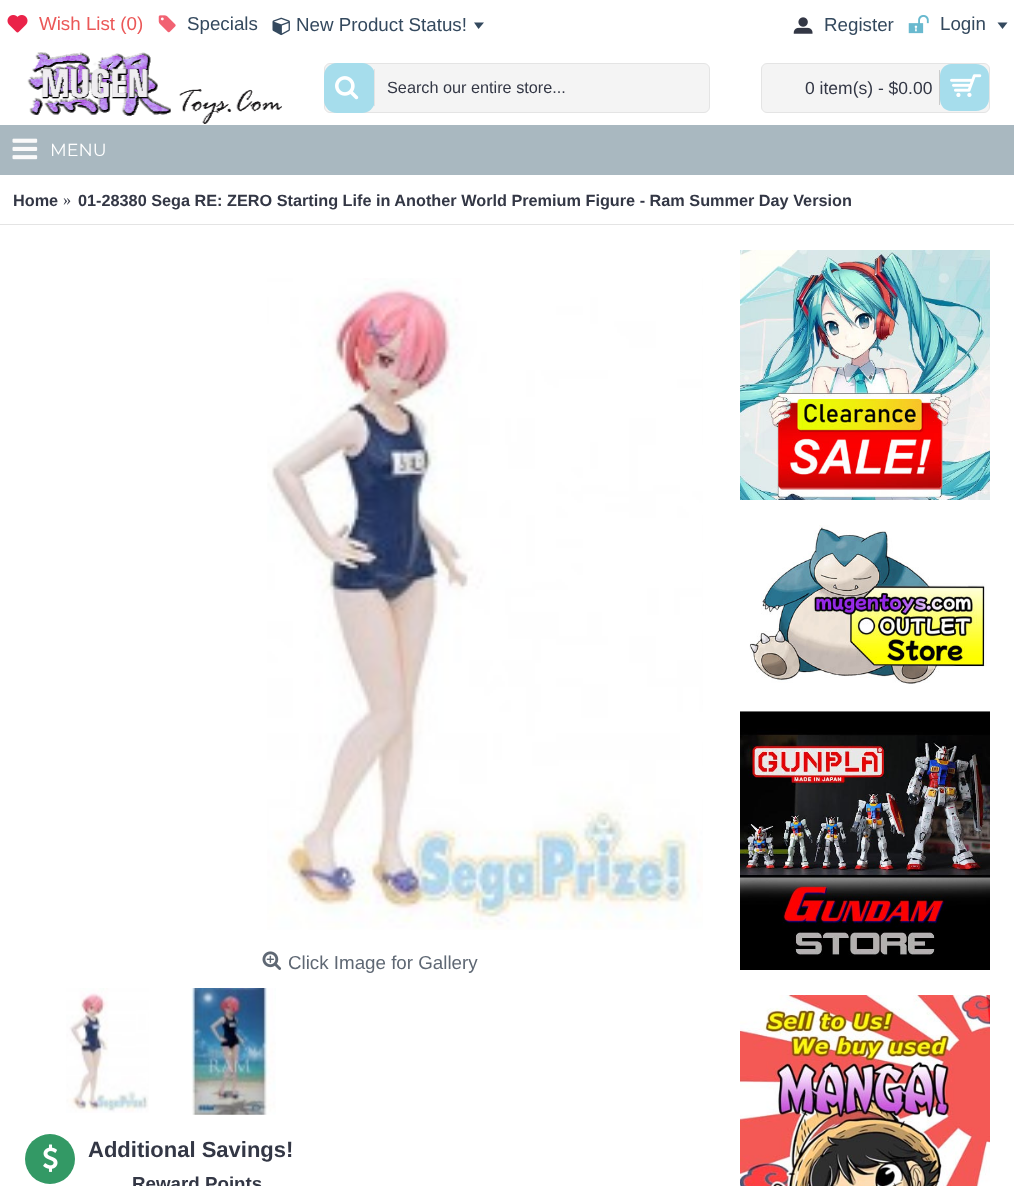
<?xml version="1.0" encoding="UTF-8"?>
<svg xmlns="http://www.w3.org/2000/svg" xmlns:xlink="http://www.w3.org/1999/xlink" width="1014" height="1186">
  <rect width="100%" height="100%" fill="#ffffff" />
  <image x="7" y="15" width="21" height="18" xlink:href="image1.png" />
  <image x="158" y="15" width="18" height="18" xlink:href="image2.png" />
  <image x="272" y="17" width="18" height="19" xlink:href="image3.png" />
  <path d="M 484 22.5 h -10 l 4.5 6.5 z" fill="#34495e" />
  <image x="793" y="17" width="20" height="17" xlink:href="image4.png" />
  <image x="908" y="15" width="21" height="19" xlink:href="image5.png" />
  <path d="M 1007.5 22.5 h -10 l 5 6.5 z" fill="#34495e" />
  <image x="27" y="52" width="255" height="72" xlink:href="image6.png" />
  <rect x="324.5" y="63.5" width="385" height="49" rx="5.5" fill="#f4f4f4" stroke="#e4e4e4" />
  <rect x="324" y="63" width="51" height="50" rx="13" fill="#a6ddec" />
  <rect x="374" y="69" width="1" height="37" fill="#e4e4e4" />
  <image x="335" y="76" width="24" height="24" xlink:href="image7.png" />
  <rect x="761.5" y="63.5" width="228" height="49" rx="5.5" fill="#f4f4f4" stroke="#e4e4e4" />
  <path d="M 951 64 h 25 c 7 0 13 5 13 12 v 23 c 0 7 -6 12 -13 12 h -25 c -6 0 -11 -5 -11 -12 v -23 c 0 -7 5 -12 11 -12 z" fill="#a6ddec" />
  <rect x="939" y="70" width="1" height="35" fill="#cccccc" />
  <image x="950" y="74" width="32" height="23" xlink:href="image8.png" />
  <rect y="125" width="1014" height="50" fill="#a9b8c0" />
  <image x="12" y="138" width="26" height="22" xlink:href="image9.png" />
  <rect y="224" width="1014" height="1" fill="#e4e4e4" />
  <image x="267" y="278" width="436" height="652" xlink:href="image10.png" />
  <image x="262" y="951" width="20" height="19" xlink:href="image11.png" />
  <image x="66" y="988" width="83" height="125" xlink:href="image12.png" />
  <image x="191" y="988" width="85" height="127" xlink:href="image13.png" />
  <circle cx="50" cy="1159" r="25" fill="#339965" />
  <image x="43" y="1144" width="15" height="28" xlink:href="image14.png" />
  <image x="740" y="250" width="250" height="250" xlink:href="image15.png" />
  <image x="749" y="525" width="238" height="159" xlink:href="image16.png" />
  <image x="740" y="711" width="250" height="259" xlink:href="image17.png" />
  <image x="740" y="995" width="250" height="191" xlink:href="image18.png" />
  <text x="39" y="30" style="font-family: Liberation Sans; font-size: 18.75px; fill: #eb5858">Wish List (0)</text>
  <text x="187" y="30" style="font-family: Liberation Sans; font-size: 18.75px; fill: #34495e">Specials</text>
  <text x="296" y="31" style="font-family: Liberation Sans; font-size: 18.75px; fill: #34495e">New Product Status!</text>
  <text x="824" y="31" style="font-family: Liberation Sans; font-size: 18.75px; fill: #34495e">Register</text>
  <text x="940" y="30" style="font-family: Liberation Sans; font-size: 18.75px; fill: #34495e">Login</text>
  <text x="387" y="93" style="font-family: Liberation Sans; font-size: 16.25px; fill: #333745">Search our entire store...</text>
  <text x="805" y="94" style="font-family: Liberation Sans; font-size: 17.5px; fill: #333745">0 item(s) - $0.00</text>
  <text x="50" y="156" style="font-family: Montserrat; font-size: 17.5px; fill: #ffffff">MENU</text>
  <text x="13" y="206" style="font-family: Liberation Sans; font-size: 16.25px; font-weight: bold; fill: #333745">Home</text>
  <text x="63" y="205" style="font-family: Liberation Serif; font-size: 16.25px; fill: #333745">»</text>
  <text x="78" y="206" style="font-family: Liberation Sans; font-size: 16.25px; font-weight: bold; fill: #333745">01-28380 Sega RE: ZERO Starting Life in Another World Premium Figure - Ram Summer Day Version</text>
  <text x="288" y="969" style="font-family: Liberation Sans; font-size: 18.75px; fill: #5f6874">Click Image for Gallery</text>
  <text x="88" y="1157" style="font-family: Liberation Sans; font-size: 22px; font-weight: bold; fill: #333745">Additional Savings!</text>
  <text x="132" y="1190" style="font-family: Liberation Sans; font-size: 18.75px; font-weight: bold; fill: #333745">Reward Points</text>
</svg>
